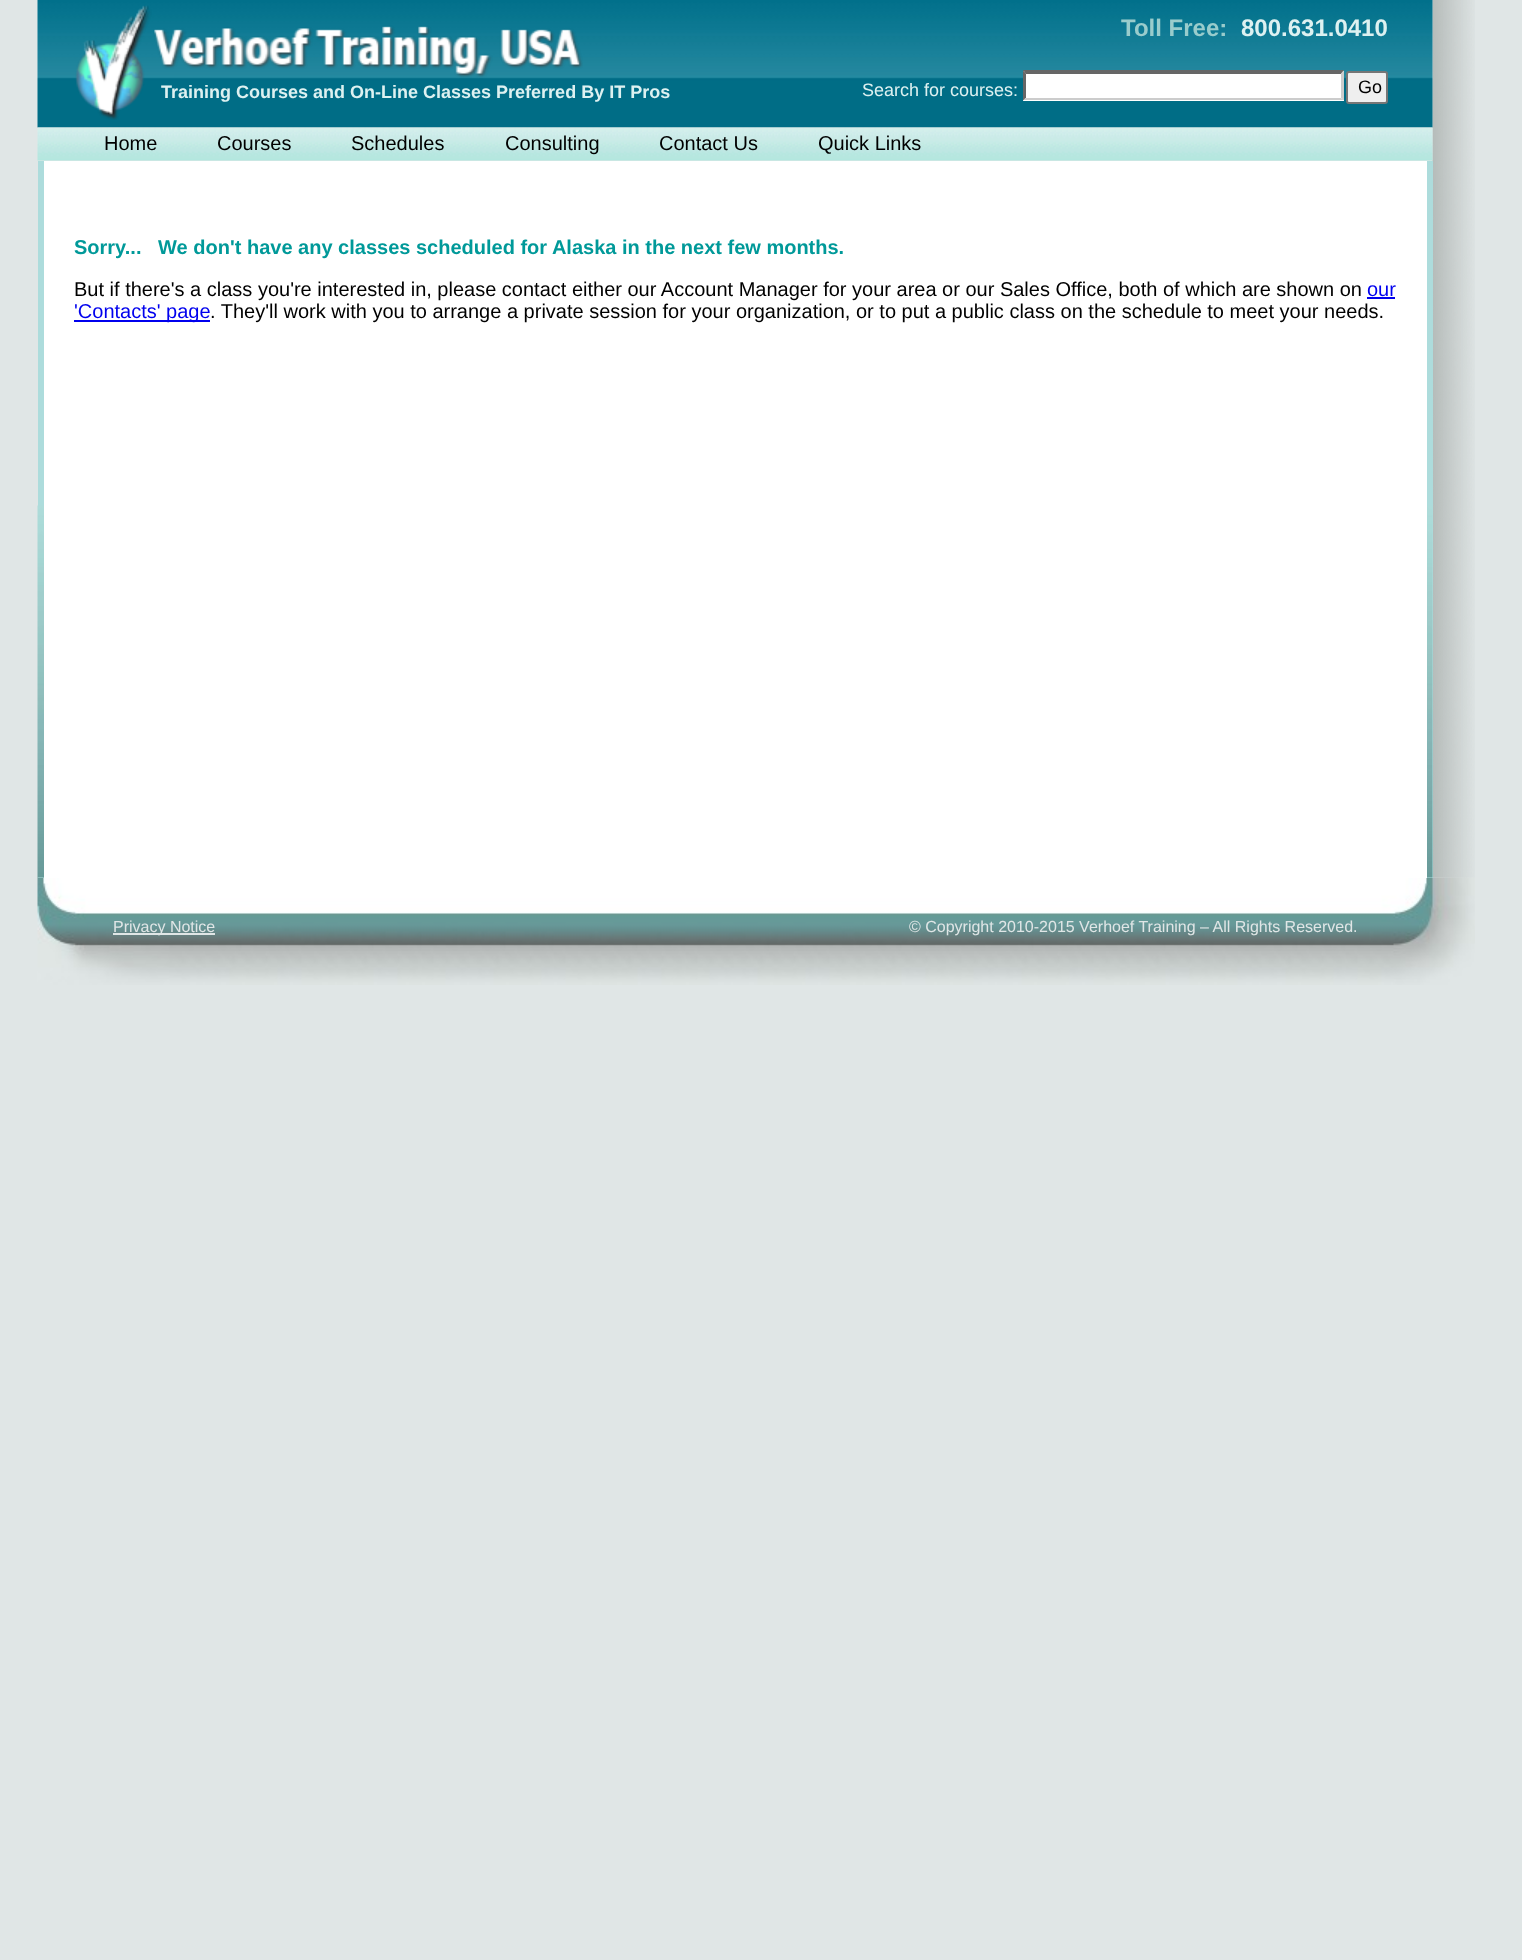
<?xml version="1.0" encoding="UTF-8"?>
<svg xmlns="http://www.w3.org/2000/svg" xmlns:xlink="http://www.w3.org/1999/xlink" width="1522" height="1960">
  <rect width="100%" height="100%" fill="#e0e6e6" />
  <image x="37" y="877" width="1438" height="108" xlink:href="image6.png" />
  <image x="1432" y="0" width="43" height="878" xlink:href="image1.png" />
  <image x="37" y="0" width="1396" height="128" xlink:href="image2.png" />
  <image x="75" y="5" width="508" height="115" xlink:href="image3.png" />
  <rect x="1023" y="71" width="321" height="30" fill="#ffffff" />
  <path d="M 1023 70 h 321 l -3 4 h -315 z" fill="#666666" />
  <path d="M 1344 70.5 v 30 l -3 -3 v -24 z" fill="#cccccc" />
  <path d="M 1344 100 h -321 l 3 -2 h 315 z" fill="#cccccc" />
  <path d="M 1023 100.5 v -30 l 3 3 v 24 z" fill="#666666" />
  <rect x="1347" y="72" width="40" height="31" rx="2" fill="#efefef" stroke="#767676" stroke-width="2" />
  <image x="37" y="127" width="1396" height="34" xlink:href="image4.png" />
  <rect x="38" y="161" width="1395" height="717" fill="#addcdc" />
  <image x="37" y="505" width="1396" height="373" xlink:href="image5.png" />
  <rect x="44" y="161" width="1383" height="717" fill="#ffffff" />
  <rect x="1367" y="297" width="28" height="2" fill="#0000ee" />
  <rect x="74" y="320" width="136" height="2" fill="#0000ee" />
  <rect x="113" y="933" width="102" height="2" fill="#e0e6e6" />
  <text x="1121" y="36" style="font-family: Liberation Sans; font-size: 24px; font-weight: bold; fill: #99cccc">Toll Free:</text>
  <text x="1241" y="36" style="font-family: Liberation Sans; font-size: 24px; font-weight: bold; fill: #ddf1f1">800.631.0410</text>
  <text x="161" y="98" style="font-family: Liberation Sans; font-size: 18px; font-weight: bold; fill: #ddf1f1">Training Courses and On-Line Classes Preferred By IT Pros</text>
  <text x="862" y="96" style="font-family: Liberation Sans; font-size: 18px; fill: #ddf1f1">Search for courses:</text>
  <text x="1358" y="93" style="font-family: Liberation Sans; font-size: 18px; fill: #000000">Go</text>
  <text x="104" y="150" style="font-family: Liberation Sans; font-size: 20px; fill: #000000">Home</text>
  <text x="217" y="150" style="font-family: Liberation Sans; font-size: 20px; fill: #000000">Courses</text>
  <text x="351" y="150" style="font-family: Liberation Sans; font-size: 20px; fill: #000000">Schedules</text>
  <text x="505" y="150" style="font-family: Liberation Sans; font-size: 20px; fill: #000000">Consulting</text>
  <text x="659" y="150" style="font-family: Liberation Sans; font-size: 20px; fill: #000000">Contact Us</text>
  <text x="818" y="150" style="font-family: Liberation Sans; font-size: 20px; fill: #000000">Quick Links</text>
  <text x="74" y="254" style="font-family: Liberation Sans; font-size: 20px; font-weight: bold; fill: #009999" xml:space="preserve">Sorry...   We don't have any classes scheduled for Alaska in the next few months.</text>
  <text x="74" y="296" style="font-family: Liberation Sans; font-size: 20px; fill: #000000">But if there's a class you're interested in, please contact either our Account Manager for your area or our Sales Office, both of which are shown on</text>
  <text x="1367" y="296" style="font-family: Liberation Sans; font-size: 20px; fill: #0000ee">our</text>
  <text x="74" y="318" style="font-family: Liberation Sans; font-size: 20px; fill: #0000ee">'Contacts' page</text>
  <text x="210" y="318" style="font-family: Liberation Sans; font-size: 20px; fill: #000000">. They'll work with you to arrange a private session for your organization, or to put a public class on the schedule to meet your needs.</text>
  <text x="113" y="932" style="font-family: Liberation Sans; font-size: 16px; fill: #e0e6e6">Privacy Notice</text>
  <text x="909" y="932" style="font-family: Liberation Sans; font-size: 16px; fill: #e0e6e6">© Copyright 2010-2015 Verhoef Training – All Rights Reserved.</text>
</svg>
